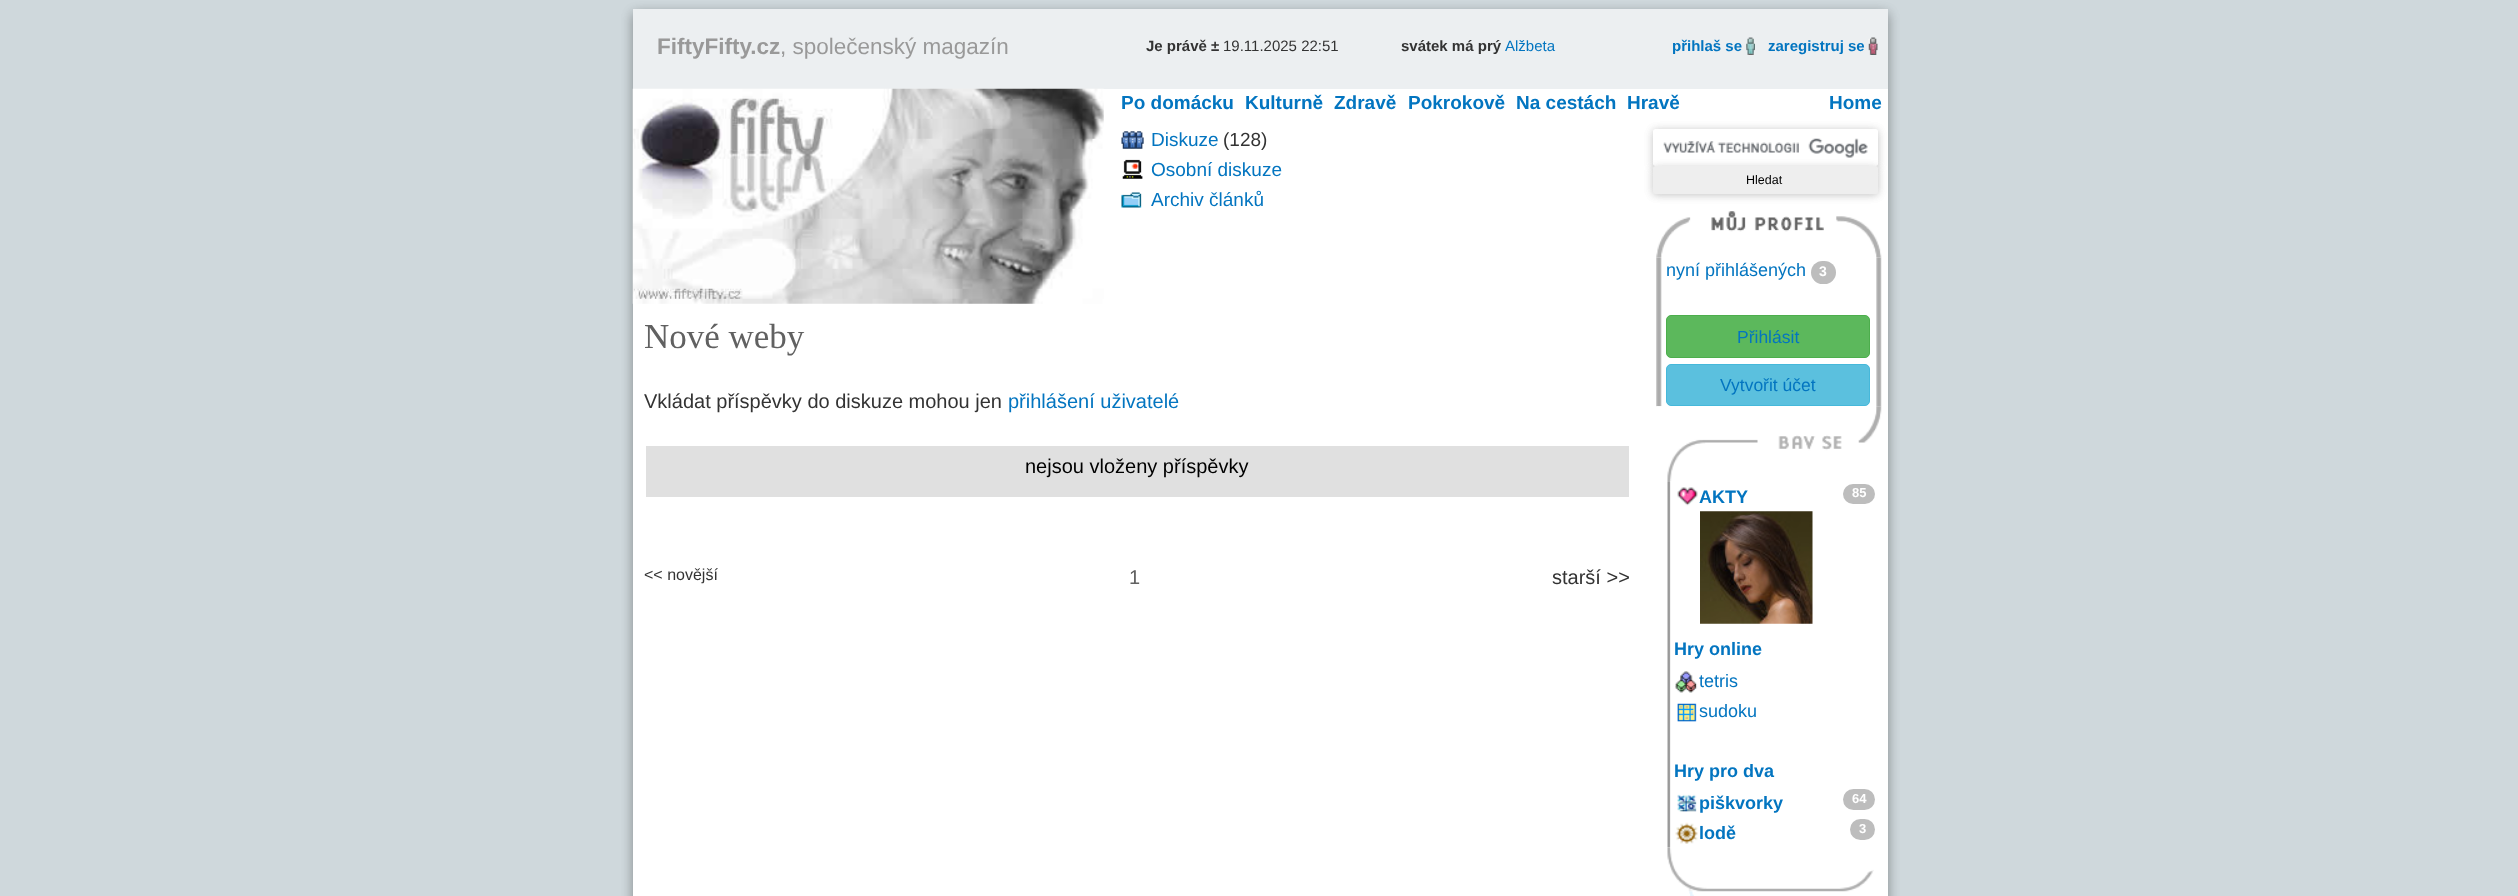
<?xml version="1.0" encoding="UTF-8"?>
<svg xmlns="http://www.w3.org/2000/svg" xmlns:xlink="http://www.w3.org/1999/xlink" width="2518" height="896">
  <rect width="100%" height="100%" fill="#cfd8dc" />
  <rect x="633" y="13" width="1255" height="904" rx="2.5" fill="#000000" fill-opacity="0.16" filter="blur(6px)" />
  <rect x="633" y="13" width="1255" height="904" rx="2.5" fill="#000000" fill-opacity="0.23" filter="blur(6px)" />
  <rect x="633" y="89" width="1255" height="807" fill="#ffffff" />
  <rect x="633" y="9" width="1255" height="80" fill="#eceff1" />
  <image x="1746" y="37" width="9" height="18" xlink:href="image1.png" />
  <image x="1868" y="37" width="10" height="18" xlink:href="image2.png" />
  <image x="632" y="88" width="472" height="216" xlink:href="image3.png" />
  <image x="1121" y="131" width="23" height="18" xlink:href="image4.png" />
  <image x="1122" y="159" width="21" height="20" xlink:href="image5.png" />
  <image x="1121" y="192" width="21" height="16" xlink:href="image6.png" />
  <rect x="1653" y="130" width="225" height="38" rx="2.5" fill="#000000" fill-opacity="0.12" filter="blur(4px)" />
  <rect x="1653" y="130" width="225" height="38" rx="2.5" fill="#000000" fill-opacity="0.12" filter="blur(4px)" />
  <rect x="1653" y="129" width="225" height="37" rx="2.5" fill="#ffffff" />
  <image x="1663" y="138" width="205" height="20" xlink:href="image7.png" />
  <rect x="1653" y="168" width="225" height="27" rx="2.5" fill="#000000" fill-opacity="0.12" filter="blur(4px)" />
  <rect x="1653" y="168" width="225" height="27" rx="2.5" fill="#000000" fill-opacity="0.12" filter="blur(4px)" />
  <rect x="1653" y="166" width="225" height="28" rx="2.5" fill="#eeeeee" />
  <rect x="646" y="446" width="983" height="51" fill="#e0e0e0" />
  <image x="1656" y="211" width="226" height="47" xlink:href="image8.png" />
  <image x="1656" y="257" width="226" height="150" xlink:href="image9.png" />
  <rect x="1811" y="261" width="25" height="23" rx="11.5" fill="#bdbdbd" />
  <rect x="1666.5" y="315.5" width="203" height="42" rx="4.5" fill="#5cb85c" stroke="#4cae4c" />
  <rect x="1666.5" y="364.5" width="203" height="41" rx="4.5" fill="#5bc0de" stroke="#46b8da" />
  <image x="1656" y="406" width="226" height="76" xlink:href="image10.png" />
  <image x="1667" y="481" width="4" height="367" xlink:href="image11.png" />
  <image x="1677" y="487" width="21" height="19" xlink:href="image12.png" />
  <rect x="1843" y="484" width="32" height="20" rx="10" fill="#bdbdbd" />
  <image x="1700" y="511" width="113" height="113" xlink:href="image13.png" />
  <image x="1675" y="671" width="23" height="22" xlink:href="image14.png" />
  <image x="1677" y="703" width="20" height="19" xlink:href="image15.png" />
  <image x="1677" y="794" width="20" height="18" xlink:href="image16.png" />
  <rect x="1843" y="789" width="32" height="21" rx="10.5" fill="#bdbdbd" />
  <image x="1675" y="822" width="23" height="22" xlink:href="image17.png" />
  <rect x="1850" y="819" width="25" height="21" rx="10.5" fill="#bdbdbd" />
  <image x="1689" y="891" width="5" height="5" xlink:href="image19.png" />
  <image x="1667" y="847" width="207" height="45" xlink:href="image18.png" />
  <text x="657" y="54" style="font-family: Liberation Sans; font-size: 22.5px; font-weight: bold; fill: #999999">FiftyFifty.cz</text>
  <text x="780" y="54" style="font-family: Liberation Sans; font-size: 22.5px; fill: #999999">, společenský magazín</text>
  <text x="1146" y="51" style="font-family: Liberation Sans; font-size: 15px; font-weight: bold; fill: #333333">Je právě ±</text>
  <text x="1223" y="51" style="font-family: Liberation Sans; font-size: 15px; fill: #333333">19.11.2025 22:51</text>
  <text x="1401" y="51" style="font-family: Liberation Sans; font-size: 15px; font-weight: bold; fill: #333333">svátek má prý</text>
  <text x="1505" y="51" style="font-family: Liberation Sans; font-size: 15px; fill: #0375c0">Alžbeta</text>
  <text x="1672" y="51" style="font-family: Liberation Sans; font-size: 15px; font-weight: bold; fill: #0375c0">přihlaš se</text>
  <text x="1768" y="51" style="font-family: Liberation Sans; font-size: 15px; font-weight: bold; fill: #0375c0">zaregistruj se</text>
  <text x="1121" y="109" style="font-family: Liberation Sans; font-size: 19px; font-weight: bold; fill: #0375c0">Po domácku</text>
  <text x="1245" y="109" style="font-family: Liberation Sans; font-size: 19px; font-weight: bold; fill: #0375c0">Kulturně</text>
  <text x="1334" y="109" style="font-family: Liberation Sans; font-size: 19px; font-weight: bold; fill: #0375c0">Zdravě</text>
  <text x="1408" y="109" style="font-family: Liberation Sans; font-size: 19px; font-weight: bold; fill: #0375c0">Pokrokově</text>
  <text x="1516" y="109" style="font-family: Liberation Sans; font-size: 19px; font-weight: bold; fill: #0375c0">Na cestách</text>
  <text x="1627" y="109" style="font-family: Liberation Sans; font-size: 19px; font-weight: bold; fill: #0375c0">Hravě</text>
  <text x="1829" y="109" style="font-family: Liberation Sans; font-size: 19px; font-weight: bold; fill: #0375c0">Home</text>
  <text x="1151" y="146" style="font-family: Liberation Sans; font-size: 19px; fill: #0375c0">Diskuze</text>
  <text x="1223" y="146" style="font-family: Liberation Sans; font-size: 19px; fill: #333333">(128)</text>
  <text x="1151" y="176" style="font-family: Liberation Sans; font-size: 19px; fill: #0375c0">Osobní diskuze</text>
  <text x="1151" y="206" style="font-family: Liberation Sans; font-size: 19px; fill: #0375c0">Archiv článků</text>
  <text x="1746" y="184" style="font-family: Liberation Sans; font-size: 12.5px; fill: #000000">Hledat</text>
  <text x="644" y="348" style="font-family: Liberation Serif; font-size: 35px; fill: #616161">Nové weby</text>
  <text x="644" y="408" style="font-family: Liberation Sans; font-size: 20px; fill: #333333">Vkládat příspěvky do diskuze mohou jen</text>
  <text x="1008" y="408" style="font-family: Liberation Sans; font-size: 20px; fill: #0375c0">přihlášení uživatelé</text>
  <text x="1025" y="473" style="font-family: Liberation Sans; font-size: 20px; fill: #000000">nejsou vloženy příspěvky</text>
  <text x="644" y="580" style="font-family: Liberation Sans; font-size: 16px; fill: #333333">&lt;&lt; novější</text>
  <text x="1129" y="584" style="font-family: Liberation Sans; font-size: 20px; fill: #616161">1</text>
  <text x="1552" y="584" style="font-family: Liberation Sans; font-size: 20px; fill: #333333">starší &gt;&gt;</text>
  <text x="1666" y="276" style="font-family: Liberation Sans; font-size: 18px; fill: #0375c0">nyní přihlášených</text>
  <text x="1819" y="276" style="font-family: Liberation Sans; font-size: 14px; font-weight: bold; fill: #ffffff">3</text>
  <text x="1737" y="343" style="font-family: Liberation Sans; font-size: 17.5px; fill: #0375c0">Přihlásit</text>
  <text x="1720" y="391" style="font-family: Liberation Sans; font-size: 17.5px; fill: #0375c0">Vytvořit účet</text>
  <text x="1699" y="503" style="font-family: Liberation Sans; font-size: 18px; font-weight: bold; fill: #0375c0">AKTY</text>
  <text x="1852" y="497" style="font-family: Liberation Sans; font-size: 13px; font-weight: bold; fill: #ffffff">85</text>
  <text x="1674" y="655" style="font-family: Liberation Sans; font-size: 18px; font-weight: bold; fill: #0375c0">Hry online</text>
  <text x="1699" y="687" style="font-family: Liberation Sans; font-size: 18px; fill: #0375c0">tetris</text>
  <text x="1699" y="717" style="font-family: Liberation Sans; font-size: 18px; fill: #0375c0">sudoku</text>
  <text x="1674" y="777" style="font-family: Liberation Sans; font-size: 18px; font-weight: bold; fill: #0375c0">Hry pro dva</text>
  <text x="1699" y="809" style="font-family: Liberation Sans; font-size: 18px; font-weight: bold; fill: #0375c0">piškvorky</text>
  <text x="1852" y="803" style="font-family: Liberation Sans; font-size: 13px; font-weight: bold; fill: #ffffff">64</text>
  <text x="1699" y="839" style="font-family: Liberation Sans; font-size: 18px; font-weight: bold; fill: #0375c0">lodě</text>
  <text x="1859" y="833" style="font-family: Liberation Sans; font-size: 13px; font-weight: bold; fill: #ffffff">3</text>
</svg>
